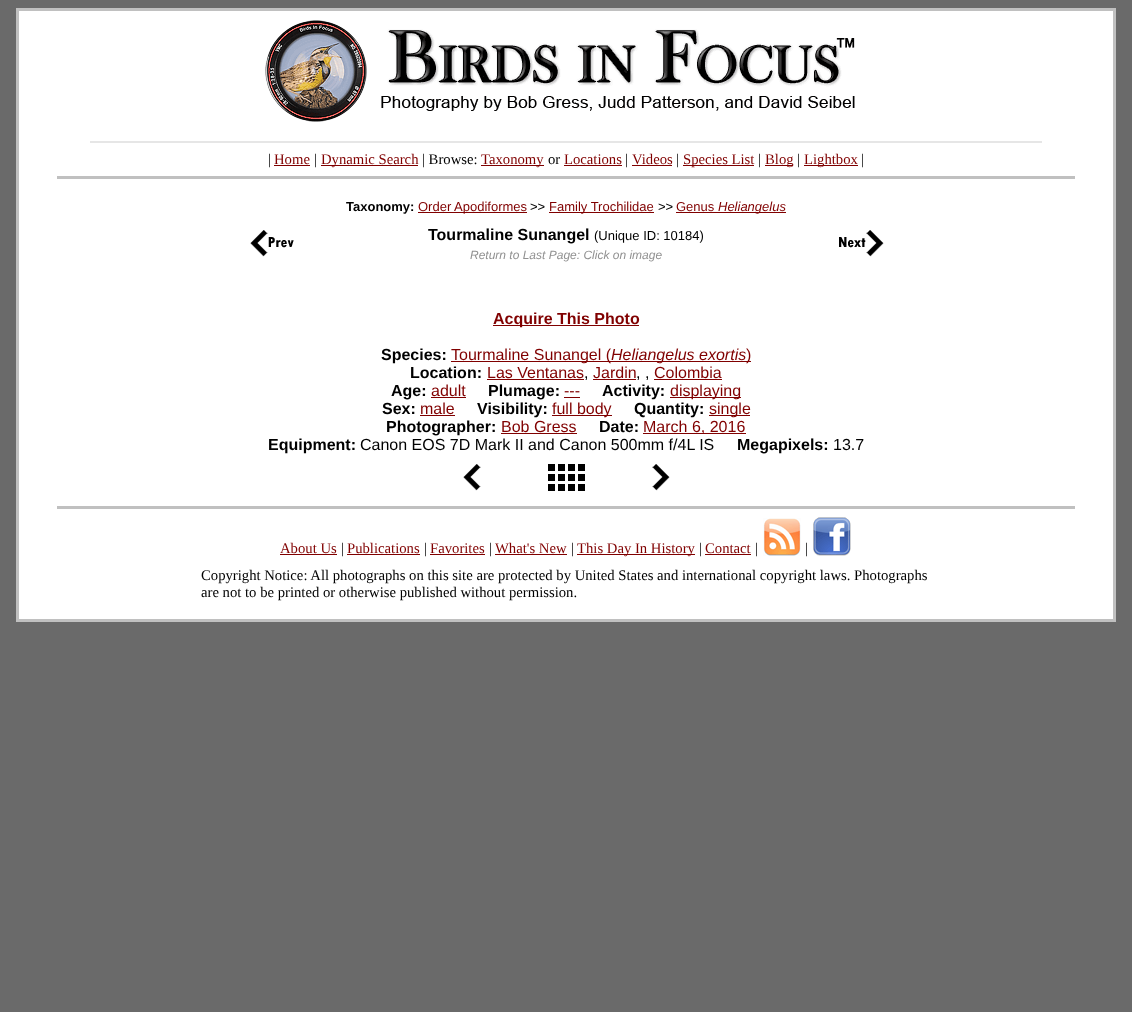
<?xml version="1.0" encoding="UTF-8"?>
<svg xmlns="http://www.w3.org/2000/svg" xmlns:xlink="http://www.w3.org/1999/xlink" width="1132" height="1012">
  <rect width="100%" height="100%" fill="#6a6a6a" />
  <rect x="19" y="11" width="1094" height="608" fill="#ffffff" />
  <rect x="16" y="8" width="1100" height="3" fill="#c0c0c0" />
  <rect x="1113" y="8" width="3" height="614" fill="#c0c0c0" />
  <rect x="16" y="619" width="1100" height="3" fill="#c0c0c0" />
  <rect x="16" y="8" width="3" height="614" fill="#c0c0c0" />
  <image x="265" y="20" width="590" height="102" xlink:href="image1.png" />
  <rect x="90" y="141" width="952" height="2" fill="#e6e6e6" />
  <rect x="274" y="165" width="36" height="1" fill="#800000" />
  <rect x="321" y="165" width="97" height="1" fill="#800000" />
  <rect x="481" y="165" width="63" height="1" fill="#800000" />
  <rect x="564" y="165" width="58" height="1" fill="#800000" />
  <rect x="632" y="165" width="40" height="1" fill="#800000" />
  <rect x="683" y="165" width="71" height="1" fill="#800000" />
  <rect x="765" y="165" width="28" height="1" fill="#800000" />
  <rect x="804" y="165" width="54" height="1" fill="#800000" />
  <rect x="57" y="176" width="1018" height="3" fill="#c0c0c0" />
  <rect x="418" y="212" width="109" height="1" fill="#800000" />
  <rect x="549" y="212" width="105" height="1" fill="#800000" />
  <rect x="676" y="212" width="110" height="1" fill="#800000" />
  <image x="250" y="230" width="44" height="27" xlink:href="image2.png" />
  <image x="839" y="230" width="45" height="27" xlink:href="image3.png" />
  <rect x="493" y="325" width="146" height="1" fill="#800000" />
  <rect x="451" y="361" width="300" height="1" fill="#800000" />
  <rect x="487" y="379" width="97" height="1" fill="#800000" />
  <rect x="593" y="379" width="43" height="1" fill="#800000" />
  <rect x="654" y="379" width="68" height="1" fill="#800000" />
  <rect x="431" y="397" width="35" height="1" fill="#800000" />
  <rect x="564" y="397" width="16" height="1" fill="#800000" />
  <rect x="670" y="397" width="71" height="1" fill="#800000" />
  <rect x="420" y="415" width="35" height="1" fill="#800000" />
  <rect x="552" y="415" width="60" height="1" fill="#800000" />
  <rect x="709" y="415" width="41" height="1" fill="#800000" />
  <rect x="501" y="433" width="76" height="1" fill="#800000" />
  <rect x="643" y="433" width="103" height="1" fill="#800000" />
  <image x="463" y="464" width="18" height="27" xlink:href="image4.png" />
  <image x="548" y="464" width="37" height="27" xlink:href="image5.png" />
  <image x="652" y="464" width="18" height="27" xlink:href="image6.png" />
  <rect x="57" y="506" width="1018" height="3" fill="#c0c0c0" />
  <rect x="280" y="554" width="57" height="1" fill="#800000" />
  <rect x="347" y="554" width="73" height="1" fill="#800000" />
  <rect x="430" y="554" width="55" height="1" fill="#800000" />
  <rect x="495" y="554" width="72" height="1" fill="#800000" />
  <rect x="577" y="554" width="118" height="1" fill="#800000" />
  <rect x="705" y="554" width="46" height="1" fill="#800000" />
  <image x="763" y="518" width="38" height="38" xlink:href="image7.png" />
  <image x="813" y="517" width="38" height="39" xlink:href="image8.png" />
  <text x="268" y="164" style="font-family: Liberation Serif; font-size: 14.7px; fill: #000000">|</text>
  <text x="274" y="164" style="font-family: Liberation Serif; font-size: 14.7px; fill: #800000">Home</text>
  <text x="314" y="164" style="font-family: Liberation Serif; font-size: 14.7px; fill: #000000">|</text>
  <text x="321" y="164" style="font-family: Liberation Serif; font-size: 14.7px; fill: #800000">Dynamic Search</text>
  <text x="422" y="164" style="font-family: Liberation Serif; font-size: 14.7px; fill: #000000">| Browse:</text>
  <text x="481" y="164" style="font-family: Liberation Serif; font-size: 14.7px; fill: #800000">Taxonomy</text>
  <text x="548" y="164" style="font-family: Liberation Serif; font-size: 14.7px; fill: #000000">or</text>
  <text x="564" y="164" style="font-family: Liberation Serif; font-size: 14.7px; fill: #800000">Locations</text>
  <text x="625" y="164" style="font-family: Liberation Serif; font-size: 14.7px; fill: #000000">|</text>
  <text x="632" y="164" style="font-family: Liberation Serif; font-size: 14.7px; fill: #800000">Videos</text>
  <text x="676" y="164" style="font-family: Liberation Serif; font-size: 14.7px; fill: #000000">|</text>
  <text x="683" y="164" style="font-family: Liberation Serif; font-size: 14.7px; fill: #800000">Species List</text>
  <text x="758" y="164" style="font-family: Liberation Serif; font-size: 14.7px; fill: #000000">|</text>
  <text x="765" y="164" style="font-family: Liberation Serif; font-size: 14.7px; fill: #800000">Blog</text>
  <text x="797" y="164" style="font-family: Liberation Serif; font-size: 14.7px; fill: #000000">|</text>
  <text x="804" y="164" style="font-family: Liberation Serif; font-size: 14.7px; fill: #800000">Lightbox</text>
  <text x="861" y="164" style="font-family: Liberation Serif; font-size: 14.7px; fill: #000000">|</text>
  <text x="346" y="211" style="font-family: Liberation Sans; font-size: 13px; font-weight: bold; fill: #000000">Taxonomy:</text>
  <text x="418" y="211" style="font-family: Liberation Sans; font-size: 13px; fill: #800000">Order Apodiformes</text>
  <text x="530" y="211" style="font-family: Liberation Sans; font-size: 13px; fill: #000000">&gt;&gt;</text>
  <text x="549" y="211" style="font-family: Liberation Sans; font-size: 13px; fill: #800000">Family Trochilidae</text>
  <text x="658" y="211" style="font-family: Liberation Sans; font-size: 13px; fill: #000000">&gt;&gt;</text>
  <text x="676" y="211" style="font-family: Liberation Sans; font-size: 13px; fill: #800000">Genus</text>
  <text x="718" y="211" style="font-family: Liberation Sans; font-size: 13px; font-style: italic; fill: #800000">Heliangelus</text>
  <text x="428" y="240" style="font-family: Liberation Sans; font-size: 16px; font-weight: bold; fill: #000000">Tourmaline Sunangel</text>
  <text x="594" y="240" style="font-family: Liberation Sans; font-size: 13px; fill: #000000">(Unique ID: 10184)</text>
  <text x="470" y="259" style="font-family: Liberation Sans; font-size: 12px; font-style: italic; fill: #919191">Return to Last Page: Click on image</text>
  <text x="493" y="324" style="font-family: Liberation Sans; font-size: 16px; font-weight: bold; fill: #800000">Acquire This Photo</text>
  <text x="381" y="360" style="font-family: Liberation Sans; font-size: 16px; font-weight: bold; fill: #000000">Species:</text>
  <text x="451" y="360" style="font-family: Liberation Sans; font-size: 16px; fill: #800000">Tourmaline Sunangel (</text>
  <text x="611" y="360" style="font-family: Liberation Sans; font-size: 16px; font-style: italic; fill: #800000">Heliangelus exortis</text>
  <text x="746" y="360" style="font-family: Liberation Sans; font-size: 16px; fill: #800000">)</text>
  <text x="410" y="378" style="font-family: Liberation Sans; font-size: 16px; font-weight: bold; fill: #000000">Location:</text>
  <text x="487" y="378" style="font-family: Liberation Sans; font-size: 16px; fill: #800000">Las Ventanas</text>
  <text x="584" y="378" style="font-family: Liberation Sans; font-size: 16px; fill: #000000">,</text>
  <text x="593" y="378" style="font-family: Liberation Sans; font-size: 16px; fill: #800000">Jardin</text>
  <text x="636" y="378" style="font-family: Liberation Sans; font-size: 16px; fill: #000000">, ,</text>
  <text x="654" y="378" style="font-family: Liberation Sans; font-size: 16px; fill: #800000">Colombia</text>
  <text x="391" y="396" style="font-family: Liberation Sans; font-size: 16px; font-weight: bold; fill: #000000">Age:</text>
  <text x="431" y="396" style="font-family: Liberation Sans; font-size: 16px; fill: #800000">adult</text>
  <text x="488" y="396" style="font-family: Liberation Sans; font-size: 16px; font-weight: bold; fill: #000000">Plumage:</text>
  <text x="564" y="396" style="font-family: Liberation Sans; font-size: 16px; fill: #800000">---</text>
  <text x="602" y="396" style="font-family: Liberation Sans; font-size: 16px; font-weight: bold; fill: #000000">Activity:</text>
  <text x="670" y="396" style="font-family: Liberation Sans; font-size: 16px; fill: #800000">displaying</text>
  <text x="382" y="414" style="font-family: Liberation Sans; font-size: 16px; font-weight: bold; fill: #000000">Sex:</text>
  <text x="420" y="414" style="font-family: Liberation Sans; font-size: 16px; fill: #800000">male</text>
  <text x="477" y="414" style="font-family: Liberation Sans; font-size: 16px; font-weight: bold; fill: #000000">Visibility:</text>
  <text x="552" y="414" style="font-family: Liberation Sans; font-size: 16px; fill: #800000">full body</text>
  <text x="634" y="414" style="font-family: Liberation Sans; font-size: 16px; font-weight: bold; fill: #000000">Quantity:</text>
  <text x="709" y="414" style="font-family: Liberation Sans; font-size: 16px; fill: #800000">single</text>
  <text x="386" y="432" style="font-family: Liberation Sans; font-size: 16px; font-weight: bold; fill: #000000">Photographer:</text>
  <text x="501" y="432" style="font-family: Liberation Sans; font-size: 16px; fill: #800000">Bob Gress</text>
  <text x="599" y="432" style="font-family: Liberation Sans; font-size: 16px; font-weight: bold; fill: #000000">Date:</text>
  <text x="643" y="432" style="font-family: Liberation Sans; font-size: 16px; fill: #800000">March 6, 2016</text>
  <text x="268" y="450" style="font-family: Liberation Sans; font-size: 16px; font-weight: bold; fill: #000000">Equipment:</text>
  <text x="360" y="450" style="font-family: Liberation Sans; font-size: 16px; fill: #000000">Canon EOS 7D Mark II and Canon 500mm f/4L IS</text>
  <text x="737" y="450" style="font-family: Liberation Sans; font-size: 16px; font-weight: bold; fill: #000000">Megapixels:</text>
  <text x="833" y="450" style="font-family: Liberation Sans; font-size: 16px; fill: #000000">13.7</text>
  <text x="280" y="553" style="font-family: Liberation Serif; font-size: 14.7px; fill: #800000">About Us</text>
  <text x="341" y="553" style="font-family: Liberation Serif; font-size: 14.7px; fill: #000000">|</text>
  <text x="347" y="553" style="font-family: Liberation Serif; font-size: 14.7px; fill: #800000">Publications</text>
  <text x="424" y="553" style="font-family: Liberation Serif; font-size: 14.7px; fill: #000000">|</text>
  <text x="430" y="553" style="font-family: Liberation Serif; font-size: 14.7px; fill: #800000">Favorites</text>
  <text x="489" y="553" style="font-family: Liberation Serif; font-size: 14.7px; fill: #000000">|</text>
  <text x="495" y="553" style="font-family: Liberation Serif; font-size: 14.7px; fill: #800000">What's New</text>
  <text x="571" y="553" style="font-family: Liberation Serif; font-size: 14.7px; fill: #000000">|</text>
  <text x="577" y="553" style="font-family: Liberation Serif; font-size: 14.7px; fill: #800000">This Day In History</text>
  <text x="699" y="553" style="font-family: Liberation Serif; font-size: 14.7px; fill: #000000">|</text>
  <text x="705" y="553" style="font-family: Liberation Serif; font-size: 14.7px; fill: #800000">Contact</text>
  <text x="755" y="553" style="font-family: Liberation Serif; font-size: 14.7px; fill: #000000">|</text>
  <text x="805" y="553" style="font-family: Liberation Serif; font-size: 14.7px; fill: #000000">|</text>
  <text x="201" y="580" style="font-family: Liberation Serif; font-size: 14.7px; fill: #000000">Copyright Notice: All photographs on this site are protected by United States and international copyright laws. Photographs</text>
  <text x="201" y="597" style="font-family: Liberation Serif; font-size: 14.7px; fill: #000000">are not to be printed or otherwise published without permission.</text>
</svg>
